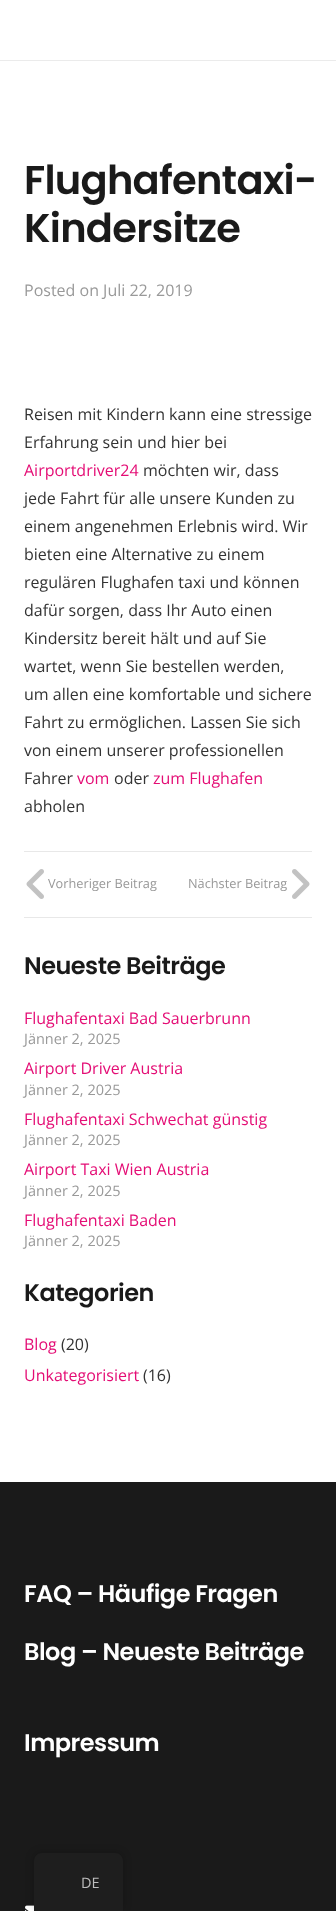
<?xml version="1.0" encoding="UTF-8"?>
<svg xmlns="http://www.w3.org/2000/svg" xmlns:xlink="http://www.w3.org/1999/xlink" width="336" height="1911">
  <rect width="100%" height="100%" fill="#ffffff" />
  <rect y="60" width="336" height="1" fill="#ebebeb" />
  <rect x="24" y="851" width="288" height="1" fill="#e8e8e8" />
  <image x="26" y="869" width="18" height="30" xlink:href="image1.png" />
  <image x="292" y="869" width="18" height="30" xlink:href="image2.png" />
  <rect x="24" y="917" width="288" height="1" fill="#e8e8e8" />
  <rect y="1482" width="336" height="429" fill="#1a1a1a" />
  <image x="25" y="1905" width="9" height="6" xlink:href="image3.png" />
  <rect x="34" y="1853" width="89" height="58" rx="8" fill="#000000" fill-opacity="0.25" filter="blur(4px)" />
  <path d="M 42 1853 h 73 c 4.5 0 8 3.5 8 8 v 50 h -89 v -50 c 0 -4.5 3.5 -8 8 -8 z" fill="#1e1e1e" />
  <text x="24" y="194" style="font-family: Poppins; font-size: 40px; font-weight: 600; letter-spacing: -0.75px; fill: #1a1a1a">Flughafentaxi-</text>
  <text x="24" y="242" style="font-family: Poppins; font-size: 40px; font-weight: 600; letter-spacing: -0.75px; fill: #1a1a1a">Kindersitze</text>
  <text x="24" y="296" style="font-family: Open Sans; font-size: 16px; fill: #999999">Posted on Juli 22, 2019</text>
  <text x="24" y="420" style="font-family: Open Sans; font-size: 16px; fill: #333333">Reisen mit Kindern kann eine stressige</text>
  <text x="24" y="448" style="font-family: Open Sans; font-size: 16px; fill: #333333">Erfahrung sein und hier bei</text>
  <text x="24" y="476" style="font-family: Open Sans; font-size: 16px; fill: #e40d75">Airportdriver24</text>
  <text x="143" y="476" style="font-family: Open Sans; font-size: 16px; fill: #333333">möchten wir, dass</text>
  <text x="24" y="504" style="font-family: Open Sans; font-size: 16px; fill: #333333">jede Fahrt für alle unsere Kunden zu</text>
  <text x="24" y="532" style="font-family: Open Sans; font-size: 16px; fill: #333333">einem angenehmen Erlebnis wird. Wir</text>
  <text x="24" y="560" style="font-family: Open Sans; font-size: 16px; fill: #333333">bieten eine Alternative zu einem</text>
  <text x="24" y="588" style="font-family: Open Sans; font-size: 16px; fill: #333333">regulären Flughafen taxi und können</text>
  <text x="24" y="616" style="font-family: Open Sans; font-size: 16px; fill: #333333">dafür sorgen, dass Ihr Auto einen</text>
  <text x="24" y="644" style="font-family: Open Sans; font-size: 16px; fill: #333333">Kindersitz bereit hält und auf Sie</text>
  <text x="24" y="672" style="font-family: Open Sans; font-size: 16px; fill: #333333">wartet, wenn Sie bestellen werden,</text>
  <text x="24" y="700" style="font-family: Open Sans; font-size: 16px; fill: #333333">um allen eine komfortable und sichere</text>
  <text x="24" y="728" style="font-family: Open Sans; font-size: 16px; fill: #333333">Fahrt zu ermöglichen. Lassen Sie sich</text>
  <text x="24" y="756" style="font-family: Open Sans; font-size: 16px; fill: #333333">von einem unserer professionellen</text>
  <text x="24" y="784" style="font-family: Open Sans; font-size: 16px; fill: #333333">Fahrer</text>
  <text x="77" y="784" style="font-family: Open Sans; font-size: 16px; fill: #e40d75">vom</text>
  <text x="114" y="784" style="font-family: Open Sans; font-size: 16px; fill: #333333">oder</text>
  <text x="153" y="784" style="font-family: Open Sans; font-size: 16px; fill: #e40d75">zum Flughafen</text>
  <text x="24" y="812" style="font-family: Open Sans; font-size: 16px; fill: #333333">abholen</text>
  <text x="48" y="888" style="font-family: Open Sans; font-size: 12.75px; fill: #999999">Vorheriger Beitrag</text>
  <text x="188" y="888" style="font-family: Open Sans; font-size: 12.75px; fill: #999999">Nächster Beitrag</text>
  <text x="24" y="974" style="font-family: Poppins; font-size: 24px; font-weight: 600; letter-spacing: -0.5px; fill: #1a1a1a">Neueste Beiträge</text>
  <text x="24" y="1024" style="font-family: Open Sans; font-size: 16px; fill: #e40d75">Flughafentaxi Bad Sauerbrunn</text>
  <text x="24" y="1044" style="font-family: Open Sans; font-size: 14.5px; fill: #999999">Jänner 2, 2025</text>
  <text x="24" y="1074" style="font-family: Open Sans; font-size: 16px; fill: #e40d75">Airport Driver Austria</text>
  <text x="24" y="1095" style="font-family: Open Sans; font-size: 14.5px; fill: #999999">Jänner 2, 2025</text>
  <text x="24" y="1125" style="font-family: Open Sans; font-size: 16px; fill: #e40d75">Flughafentaxi Schwechat günstig</text>
  <text x="24" y="1145" style="font-family: Open Sans; font-size: 14.5px; fill: #999999">Jänner 2, 2025</text>
  <text x="24" y="1175" style="font-family: Open Sans; font-size: 16px; fill: #e40d75">Airport Taxi Wien Austria</text>
  <text x="24" y="1196" style="font-family: Open Sans; font-size: 14.5px; fill: #999999">Jänner 2, 2025</text>
  <text x="24" y="1226" style="font-family: Open Sans; font-size: 16px; fill: #e40d75">Flughafentaxi Baden</text>
  <text x="24" y="1246" style="font-family: Open Sans; font-size: 14.5px; fill: #999999">Jänner 2, 2025</text>
  <text x="24" y="1301" style="font-family: Poppins; font-size: 24px; font-weight: 600; letter-spacing: -0.5px; fill: #1a1a1a">Kategorien</text>
  <text x="24" y="1350" style="font-family: Open Sans; font-size: 16px; fill: #e40d75">Blog</text>
  <text x="61" y="1350" style="font-family: Open Sans; font-size: 16px; fill: #333333">(20)</text>
  <text x="24" y="1381" style="font-family: Open Sans; font-size: 16px; fill: #e40d75">Unkategorisiert</text>
  <text x="143" y="1381" style="font-family: Open Sans; font-size: 16px; fill: #333333">(16)</text>
  <text x="24" y="1602" style="font-family: Poppins; font-size: 24px; font-weight: 600; letter-spacing: -0.5px; fill: #ffffff">FAQ – Häufige Fragen</text>
  <text x="24" y="1660" style="font-family: Poppins; font-size: 24px; font-weight: 600; letter-spacing: -0.5px; fill: #ffffff">Blog – Neueste Beiträge</text>
  <text x="24" y="1751" style="font-family: Poppins; font-size: 24px; font-weight: 600; letter-spacing: -0.5px; fill: #ffffff">Impressum</text>
  <text x="81" y="1888" style="font-family: Open Sans; font-size: 14.5px; fill: #bdbdbd">DE</text>
</svg>
